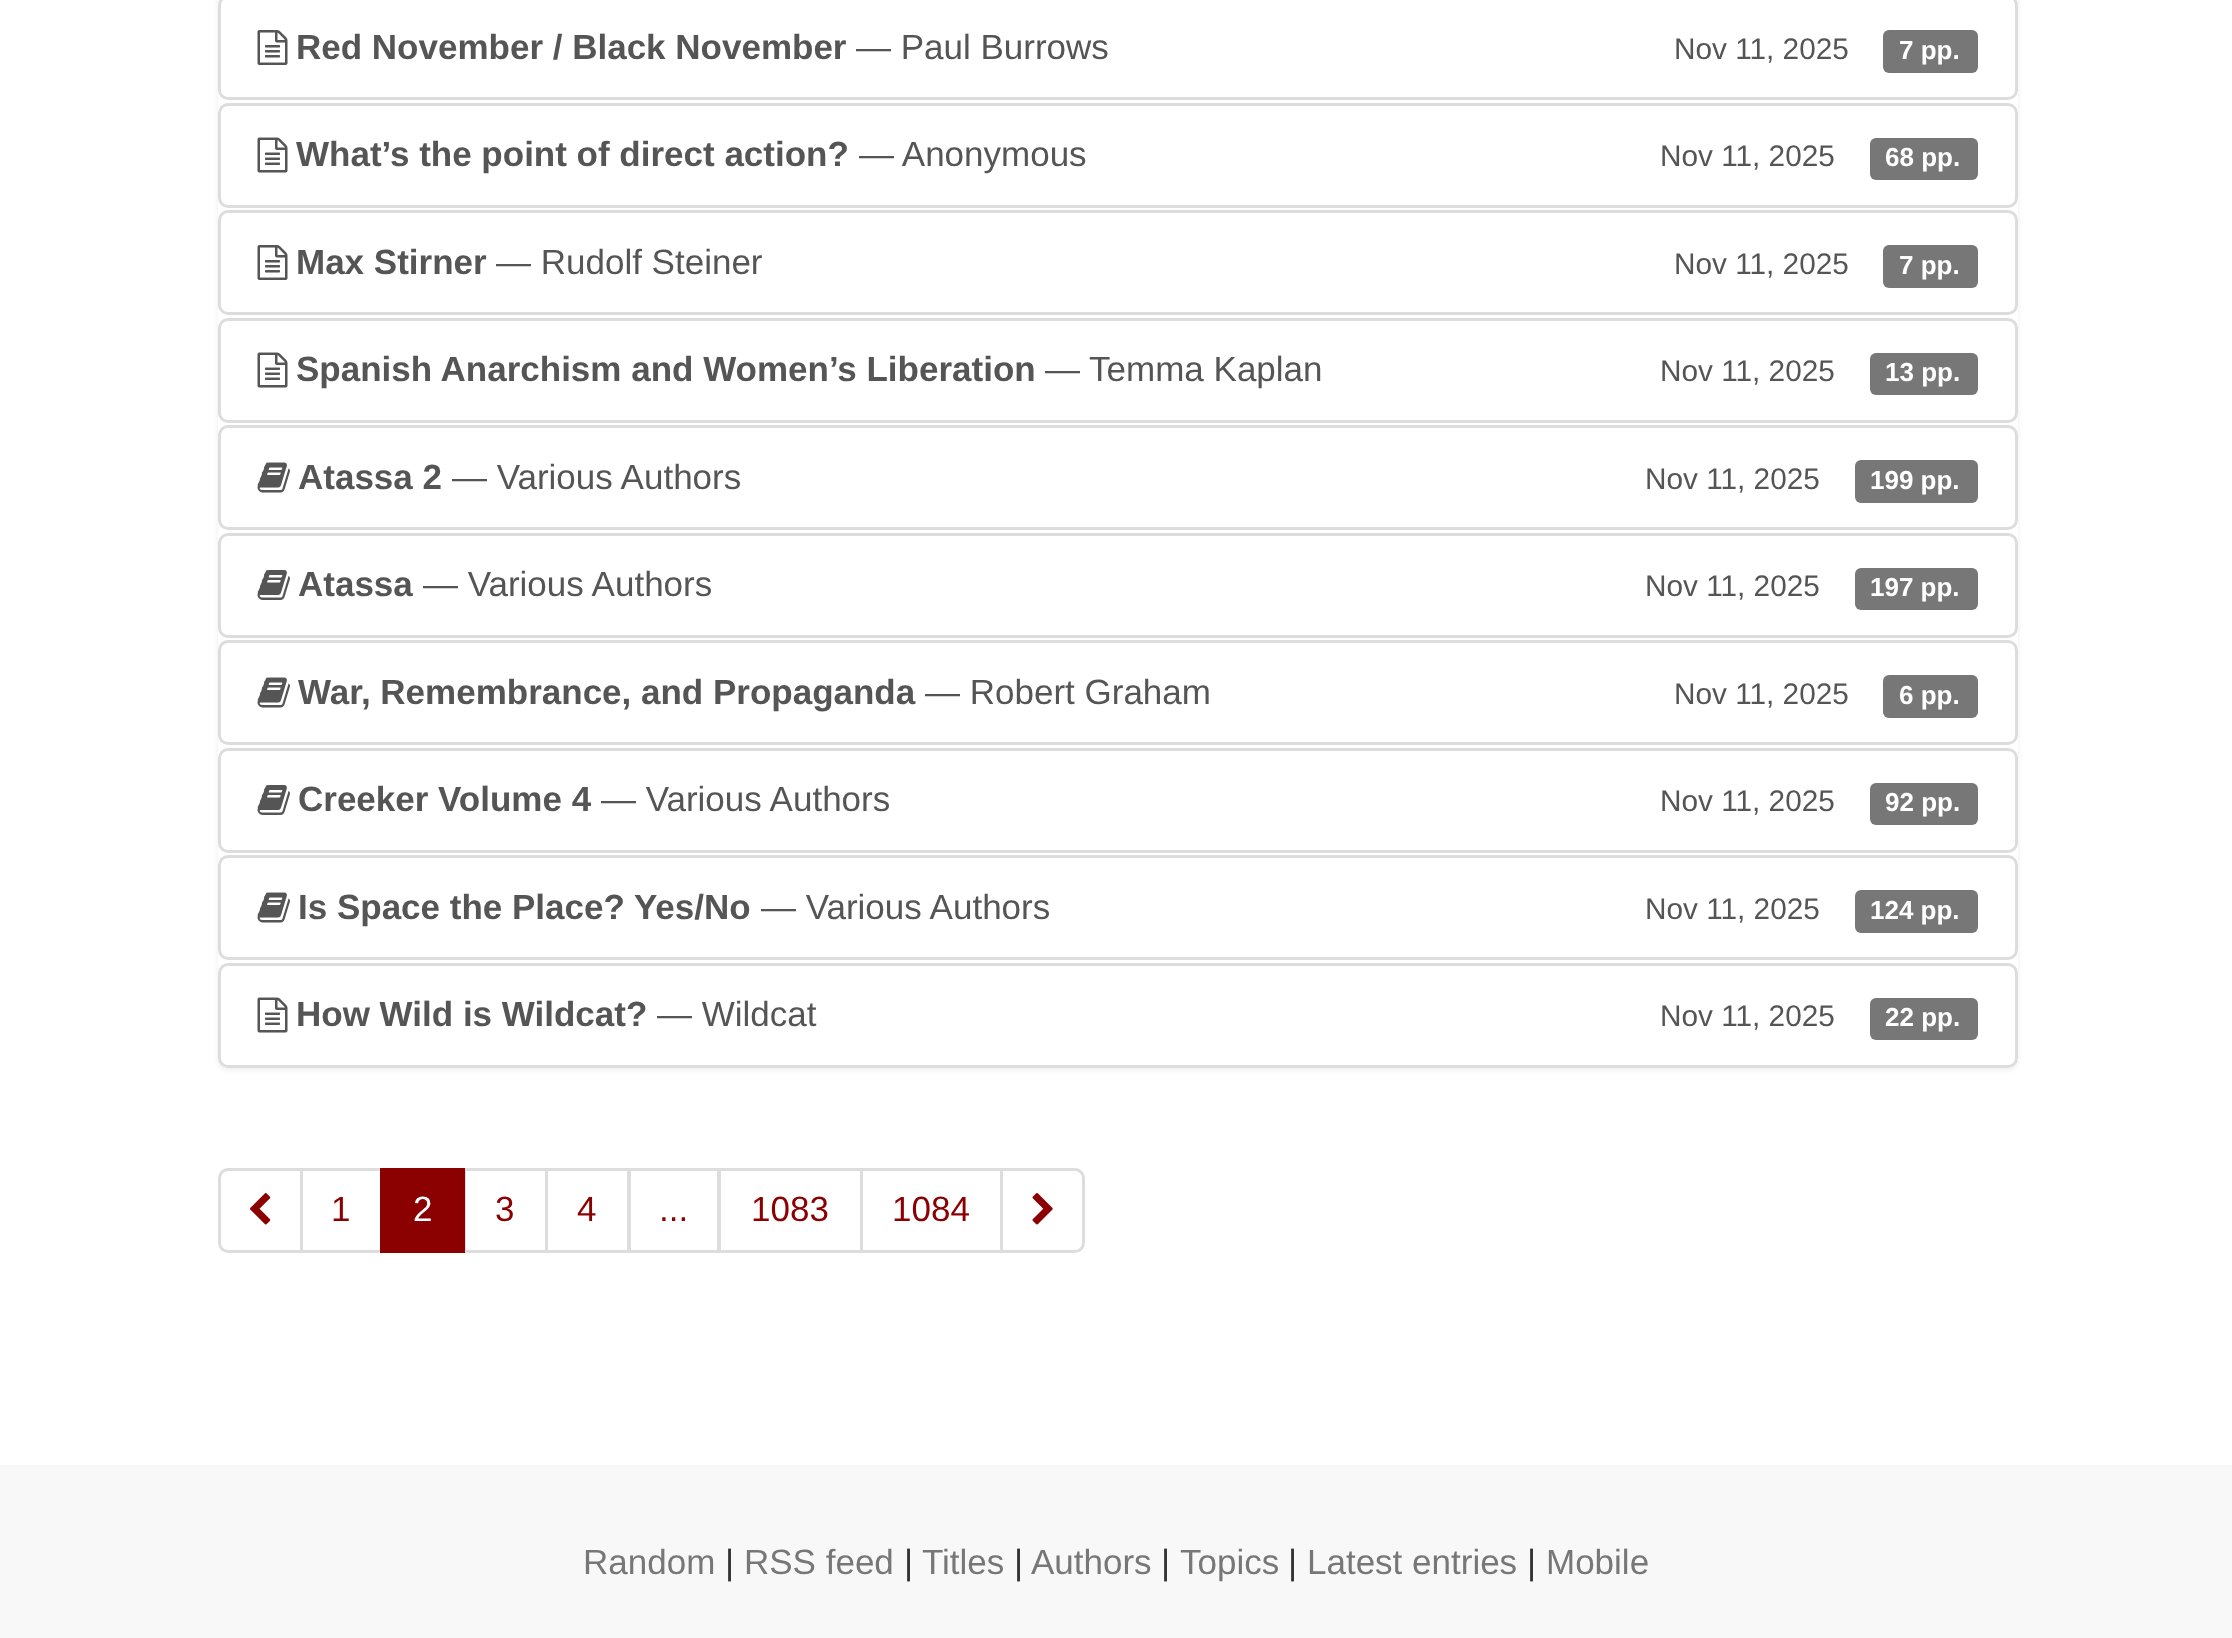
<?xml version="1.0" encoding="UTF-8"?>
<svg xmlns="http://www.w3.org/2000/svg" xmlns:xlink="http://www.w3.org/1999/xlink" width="2232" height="1638">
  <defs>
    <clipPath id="clip1"><path d="M 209 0 h 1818 v 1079 h -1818 z m 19 -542 h 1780 c 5.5 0 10 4.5 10 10 v 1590 c 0 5.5 -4.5 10 -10 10 h -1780 c -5.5 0 -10 -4.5 -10 -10 v -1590 c 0 -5.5 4.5 -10 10 -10 z" clip-rule="evenodd" /></clipPath>
  </defs>
  <rect width="100%" height="100%" fill="#ffffff" />
  <g clip-path="url(#clip1)">
    <rect x="218" y="-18" width="1800" height="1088" rx="10" fill="#000000" fill-opacity="0.07" filter="blur(2.5px)" />
  </g>
  <rect x="219.5" y="-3.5" width="1797" height="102" rx="8.5" fill="#ffffff" stroke="#dddddd" stroke-width="3" />
  <image x="257" y="30" width="31" height="35" xlink:href="image1.png" />
  <rect x="1883" y="30" width="95" height="43" rx="6" fill="#777777" />
  <rect x="219.5" y="104.5" width="1797" height="102" rx="8.5" fill="#ffffff" stroke="#dddddd" stroke-width="3" />
  <image x="257" y="137" width="31" height="36" xlink:href="image2.png" />
  <rect x="1870" y="138" width="108" height="42" rx="6" fill="#777777" />
  <rect x="219.5" y="211.5" width="1797" height="102" rx="8.5" fill="#ffffff" stroke="#dddddd" stroke-width="3" />
  <image x="257" y="245" width="31" height="35" xlink:href="image1.png" />
  <rect x="1883" y="245" width="95" height="43" rx="6" fill="#777777" />
  <rect x="219.5" y="319.5" width="1797" height="102" rx="8.5" fill="#ffffff" stroke="#dddddd" stroke-width="3" />
  <image x="257" y="352" width="31" height="36" xlink:href="image2.png" />
  <rect x="1870" y="353" width="108" height="42" rx="6" fill="#777777" />
  <rect x="219.5" y="426.5" width="1797" height="102" rx="8.5" fill="#ffffff" stroke="#dddddd" stroke-width="3" />
  <image x="257" y="462" width="33" height="31" xlink:href="image3.png" />
  <rect x="1855" y="460" width="123" height="43" rx="6" fill="#777777" />
  <rect x="219.5" y="534.5" width="1797" height="102" rx="8.5" fill="#ffffff" stroke="#dddddd" stroke-width="3" />
  <image x="257" y="570" width="33" height="30" xlink:href="image4.png" />
  <rect x="1855" y="568" width="123" height="42" rx="6" fill="#777777" />
  <rect x="219.5" y="641.5" width="1797" height="102" rx="8.5" fill="#ffffff" stroke="#dddddd" stroke-width="3" />
  <image x="257" y="677" width="33" height="31" xlink:href="image3.png" />
  <rect x="1883" y="675" width="95" height="43" rx="6" fill="#777777" />
  <rect x="219.5" y="749.5" width="1797" height="102" rx="8.5" fill="#ffffff" stroke="#dddddd" stroke-width="3" />
  <image x="257" y="785" width="33" height="30" xlink:href="image4.png" />
  <rect x="1870" y="783" width="108" height="42" rx="6" fill="#777777" />
  <rect x="219.5" y="856.5" width="1797" height="102" rx="8.5" fill="#ffffff" stroke="#dddddd" stroke-width="3" />
  <image x="257" y="892" width="33" height="31" xlink:href="image3.png" />
  <rect x="1855" y="890" width="123" height="43" rx="6" fill="#777777" />
  <rect x="219.5" y="964.5" width="1797" height="102" rx="8.5" fill="#ffffff" stroke="#dddddd" stroke-width="3" />
  <image x="257" y="997" width="31" height="36" xlink:href="image2.png" />
  <rect x="1870" y="998" width="108" height="42" rx="6" fill="#777777" />
  <path d="M 228 1169.5 h 73.5 v 82 h -73.5 c -4.5 0 -8.5 -4 -8.5 -8.5 v -65 c 0 -4.5 4 -8.5 8.5 -8.5 z" fill="none" stroke="#dddddd" stroke-width="3" />
  <image x="250" y="1193" width="21" height="32" xlink:href="image5.png" />
  <rect x="301.5" y="1169.5" width="80" height="82" fill="none" stroke="#dddddd" stroke-width="3" />
  <rect x="464.5" y="1169.5" width="82" height="82" fill="none" stroke="#dddddd" stroke-width="3" />
  <rect x="380" y="1168" width="85" height="85" fill="#8b0000" />
  <rect x="546.5" y="1169.5" width="82" height="82" fill="none" stroke="#dddddd" stroke-width="3" />
  <rect x="629.5" y="1169.5" width="89" height="82" fill="none" stroke="#dddddd" stroke-width="3" />
  <rect x="719.5" y="1169.5" width="142" height="82" fill="none" stroke="#dddddd" stroke-width="3" />
  <rect x="861.5" y="1169.5" width="140" height="82" fill="none" stroke="#dddddd" stroke-width="3" />
  <path d="M 1001.5 1169.5 h 73.5 c 4.5 0 8.5 4 8.5 8.5 v 65 c 0 4.5 -4 8.5 -8.5 8.5 h -73.5 z" fill="#ffffff" stroke="#dddddd" stroke-width="3" />
  <image x="1032" y="1193" width="21" height="32" xlink:href="image6.png" />
  <rect y="1465" width="2232" height="173" fill="#f8f8f8" />
  <text x="296" y="59" style="font-family: Liberation Sans; font-size: 35px; font-weight: bold; fill: #555555">Red November / Black November</text>
  <text x="856" y="59" style="font-family: Liberation Sans; font-size: 35px; fill: #555555">— Paul Burrows</text>
  <text x="1674" y="59" style="font-family: Liberation Sans; font-size: 29.75px; fill: #555555">Nov 11, 2025</text>
  <text x="1899" y="59" style="font-family: Liberation Sans; font-size: 26px; font-weight: bold; fill: #ffffff">7 pp.</text>
  <text x="296" y="166" style="font-family: Liberation Sans; font-size: 35px; font-weight: bold; fill: #555555">What’s the point of direct action?</text>
  <text x="859" y="166" style="font-family: Liberation Sans; font-size: 35px; fill: #555555">— Anonymous</text>
  <text x="1660" y="166" style="font-family: Liberation Sans; font-size: 29.75px; fill: #555555">Nov 11, 2025</text>
  <text x="1885" y="166" style="font-family: Liberation Sans; font-size: 26px; font-weight: bold; fill: #ffffff">68 pp.</text>
  <text x="296" y="274" style="font-family: Liberation Sans; font-size: 35px; font-weight: bold; fill: #555555">Max Stirner</text>
  <text x="496" y="274" style="font-family: Liberation Sans; font-size: 35px; fill: #555555">— Rudolf Steiner</text>
  <text x="1674" y="274" style="font-family: Liberation Sans; font-size: 29.75px; fill: #555555">Nov 11, 2025</text>
  <text x="1899" y="274" style="font-family: Liberation Sans; font-size: 26px; font-weight: bold; fill: #ffffff">7 pp.</text>
  <text x="296" y="381" style="font-family: Liberation Sans; font-size: 35px; font-weight: bold; fill: #555555">Spanish Anarchism and Women’s Liberation</text>
  <text x="1045" y="381" style="font-family: Liberation Sans; font-size: 35px; fill: #555555">— Temma Kaplan</text>
  <text x="1660" y="381" style="font-family: Liberation Sans; font-size: 29.75px; fill: #555555">Nov 11, 2025</text>
  <text x="1885" y="381" style="font-family: Liberation Sans; font-size: 26px; font-weight: bold; fill: #ffffff">13 pp.</text>
  <text x="298" y="489" style="font-family: Liberation Sans; font-size: 35px; font-weight: bold; fill: #555555">Atassa 2</text>
  <text x="452" y="489" style="font-family: Liberation Sans; font-size: 35px; fill: #555555">— Various Authors</text>
  <text x="1645" y="489" style="font-family: Liberation Sans; font-size: 29.75px; fill: #555555">Nov 11, 2025</text>
  <text x="1870" y="489" style="font-family: Liberation Sans; font-size: 26px; font-weight: bold; fill: #ffffff">199 pp.</text>
  <text x="298" y="596" style="font-family: Liberation Sans; font-size: 35px; font-weight: bold; fill: #555555">Atassa</text>
  <text x="423" y="596" style="font-family: Liberation Sans; font-size: 35px; fill: #555555">— Various Authors</text>
  <text x="1645" y="596" style="font-family: Liberation Sans; font-size: 29.75px; fill: #555555">Nov 11, 2025</text>
  <text x="1870" y="596" style="font-family: Liberation Sans; font-size: 26px; font-weight: bold; fill: #ffffff">197 pp.</text>
  <text x="298" y="704" style="font-family: Liberation Sans; font-size: 35px; font-weight: bold; fill: #555555">War, Remembrance, and Propaganda</text>
  <text x="925" y="704" style="font-family: Liberation Sans; font-size: 35px; fill: #555555">— Robert Graham</text>
  <text x="1674" y="704" style="font-family: Liberation Sans; font-size: 29.75px; fill: #555555">Nov 11, 2025</text>
  <text x="1899" y="704" style="font-family: Liberation Sans; font-size: 26px; font-weight: bold; fill: #ffffff">6 pp.</text>
  <text x="298" y="811" style="font-family: Liberation Sans; font-size: 35px; font-weight: bold; fill: #555555">Creeker Volume 4</text>
  <text x="601" y="811" style="font-family: Liberation Sans; font-size: 35px; fill: #555555">— Various Authors</text>
  <text x="1660" y="811" style="font-family: Liberation Sans; font-size: 29.75px; fill: #555555">Nov 11, 2025</text>
  <text x="1885" y="811" style="font-family: Liberation Sans; font-size: 26px; font-weight: bold; fill: #ffffff">92 pp.</text>
  <text x="298" y="919" style="font-family: Liberation Sans; font-size: 35px; font-weight: bold; fill: #555555">Is Space the Place? Yes/No</text>
  <text x="761" y="919" style="font-family: Liberation Sans; font-size: 35px; fill: #555555">— Various Authors</text>
  <text x="1645" y="919" style="font-family: Liberation Sans; font-size: 29.75px; fill: #555555">Nov 11, 2025</text>
  <text x="1870" y="919" style="font-family: Liberation Sans; font-size: 26px; font-weight: bold; fill: #ffffff">124 pp.</text>
  <text x="296" y="1026" style="font-family: Liberation Sans; font-size: 35px; font-weight: bold; fill: #555555">How Wild is Wildcat?</text>
  <text x="657" y="1026" style="font-family: Liberation Sans; font-size: 35px; fill: #555555">— Wildcat</text>
  <text x="1660" y="1026" style="font-family: Liberation Sans; font-size: 29.75px; fill: #555555">Nov 11, 2025</text>
  <text x="1885" y="1026" style="font-family: Liberation Sans; font-size: 26px; font-weight: bold; fill: #ffffff">22 pp.</text>
  <text x="331" y="1221" style="font-family: Liberation Sans; font-size: 35px; fill: #8b0000">1</text>
  <text x="413" y="1221" style="font-family: Liberation Sans; font-size: 35px; fill: #ffffff">2</text>
  <text x="495" y="1221" style="font-family: Liberation Sans; font-size: 35px; fill: #8b0000">3</text>
  <text x="577" y="1221" style="font-family: Liberation Sans; font-size: 35px; fill: #8b0000">4</text>
  <text x="659" y="1221" style="font-family: Liberation Sans; font-size: 35px; fill: #8b0000">...</text>
  <text x="751" y="1221" style="font-family: Liberation Sans; font-size: 35px; fill: #8b0000">1083</text>
  <text x="892" y="1221" style="font-family: Liberation Sans; font-size: 35px; fill: #8b0000">1084</text>
  <text x="583" y="1574" style="font-family: Liberation Sans; font-size: 35px; fill: #777777">Random</text>
  <text x="725" y="1574" style="font-family: Liberation Sans; font-size: 35px; fill: #333333">|</text>
  <text x="744" y="1574" style="font-family: Liberation Sans; font-size: 35px; fill: #777777">RSS feed</text>
  <text x="904" y="1574" style="font-family: Liberation Sans; font-size: 35px; fill: #333333">|</text>
  <text x="922" y="1574" style="font-family: Liberation Sans; font-size: 35px; fill: #777777">Titles</text>
  <text x="1014" y="1574" style="font-family: Liberation Sans; font-size: 35px; fill: #333333">|</text>
  <text x="1031" y="1574" style="font-family: Liberation Sans; font-size: 35px; fill: #777777">Authors</text>
  <text x="1161" y="1574" style="font-family: Liberation Sans; font-size: 35px; fill: #333333">|</text>
  <text x="1180" y="1574" style="font-family: Liberation Sans; font-size: 35px; fill: #777777">Topics</text>
  <text x="1288" y="1574" style="font-family: Liberation Sans; font-size: 35px; fill: #333333">|</text>
  <text x="1307" y="1574" style="font-family: Liberation Sans; font-size: 35px; fill: #777777">Latest entries</text>
  <text x="1527" y="1574" style="font-family: Liberation Sans; font-size: 35px; fill: #333333">|</text>
  <text x="1546" y="1574" style="font-family: Liberation Sans; font-size: 35px; fill: #777777">Mobile</text>
</svg>
